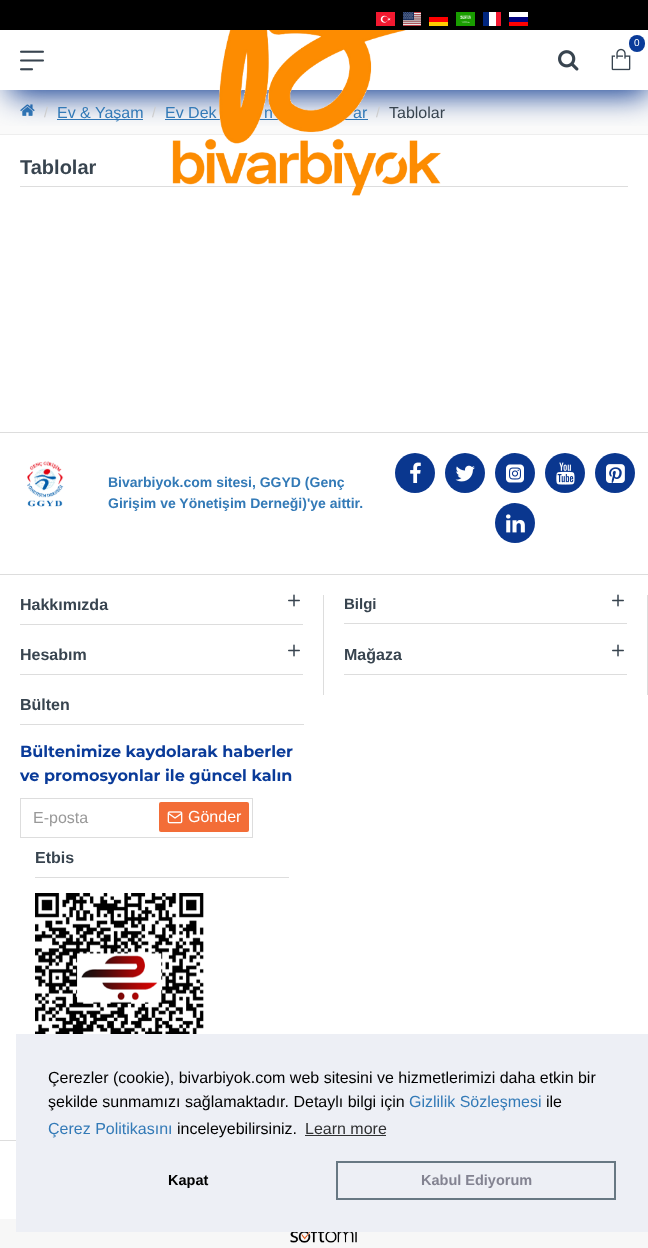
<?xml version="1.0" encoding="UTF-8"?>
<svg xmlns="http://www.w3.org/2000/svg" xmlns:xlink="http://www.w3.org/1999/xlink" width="648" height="1248">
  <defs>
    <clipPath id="clip1"><rect x="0" y="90" width="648" height="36" /></clipPath>
  </defs>
  <rect width="100%" height="100%" fill="#ffffff" />
  <rect y="90" width="648" height="44" fill="#fafafa" />
  <rect y="134" width="648" height="1" fill="#eeeeee" />
  <image x="20" y="104" width="15" height="12" xlink:href="image8.png" />
  <rect x="57" y="119" width="86" height="1" fill="#337ab7" />
  <rect x="165" y="119" width="122" height="1" fill="#337ab7" />
  <rect x="344" y="119" width="24" height="1" fill="#337ab7" />
  <g clip-path="url(#clip1)">
    <rect x="10" y="45" width="638" height="50" fill="#0a378f" filter="blur(15px)" />
  </g>
  <rect width="648" height="30" fill="#000000" />
  <image x="376" y="12" width="19" height="14" xlink:href="image1.png" />
  <image x="403" y="12" width="18" height="14" xlink:href="image2.png" />
  <rect x="429" y="22" width="19" height="4" fill="#ffcc00" />
  <rect x="429" y="17" width="19" height="5" fill="#ff0000" />
  <image x="456" y="12" width="19" height="14" xlink:href="image3.png" />
  <rect x="489" y="12" width="7" height="14" fill="#ffffff" />
  <rect x="483" y="12" width="6" height="14" fill="#00267f" />
  <rect x="496" y="12" width="5" height="14" fill="#f31830" />
  <rect x="509" y="12" width="19" height="5" fill="#ffffff" />
  <rect x="509" y="17" width="19" height="5" fill="#01017e" />
  <rect x="509" y="22" width="19" height="4" fill="#fe0101" />
  <image x="611" y="48" width="20" height="23" xlink:href="image5.png" />
  <rect x="629" y="35" width="16" height="17" rx="8" fill="#0a3b99" />
  <image x="558" y="50" width="21" height="21" xlink:href="image6.png" />
  <image x="20" y="50" width="24" height="21" xlink:href="image7.png" />
  <rect x="20" y="186" width="608" height="1" fill="#dddddd" />
  <rect y="432" width="648" height="1" fill="#dddddd" />
  <rect y="574" width="648" height="1" fill="#dddddd" />
  <image x="27" y="461" width="37" height="46" xlink:href="image9.png" />
  <circle cx="415" cy="473" r="20" fill="#0a378f" />
  <image x="410" y="462" width="11" height="21" xlink:href="image10.png" />
  <circle cx="465" cy="473" r="20" fill="#0a378f" />
  <image x="455" y="465" width="20" height="17" xlink:href="image11.png" />
  <circle cx="515" cy="473" r="20" fill="#0a378f" />
  <image x="506" y="464" width="18" height="19" xlink:href="image12.png" />
  <circle cx="565" cy="473" r="20" fill="#0a378f" />
  <image x="556" y="462" width="19" height="23" xlink:href="image13.png" />
  <circle cx="615" cy="473" r="20" fill="#0a378f" />
  <image x="606" y="464" width="19" height="19" xlink:href="image14.png" />
  <circle cx="515" cy="523" r="20" fill="#0a378f" />
  <image x="506" y="514" width="19" height="19" xlink:href="image15.png" />
  <rect x="323" y="595" width="1" height="100" fill="#dddddd" />
  <rect x="20" y="624" width="283" height="1" fill="#dddddd" />
  <image x="288" y="594" width="12" height="13" xlink:href="image16.png" />
  <rect x="647" y="595" width="1" height="100" fill="#dddddd" />
  <rect x="344" y="623" width="283" height="1" fill="#dddddd" />
  <image x="612" y="594" width="12" height="13" xlink:href="image16.png" />
  <rect x="20" y="674" width="283" height="1" fill="#dddddd" />
  <image x="288" y="644" width="12" height="13" xlink:href="image16.png" />
  <rect x="344" y="674" width="283" height="1" fill="#dddddd" />
  <image x="612" y="644" width="12" height="13" xlink:href="image16.png" />
  <rect x="20" y="724" width="284" height="1" fill="#dddddd" />
  <rect x="20.5" y="798.5" width="232" height="39" fill="none" stroke="#dddddd" />
  <rect x="159" y="802" width="90" height="30" rx="2" fill="#f36d37" />
  <image x="167" y="811" width="16" height="13" xlink:href="image17.png" />
  <rect x="35" y="877" width="254" height="1" fill="#dddddd" />
  <image x="35" y="893" width="169" height="141" xlink:href="image18.png" />
  <rect y="1140" width="16" height="1" fill="#dddddd" />
  <rect y="1219" width="648" height="29" fill="#f7f7f7" />
  <image x="290" y="1232" width="67" height="11" xlink:href="image19.png" />
  <rect x="16" y="1034" width="632" height="198" fill="#edeff5" />
  <rect x="305" y="1135" width="81" height="1" fill="#2f3031" />
  <rect x="337" y="1162" width="278" height="37" fill="none" stroke="#687883" stroke-width="2" />
  <text x="634" y="46" style="font-family: Liberation Sans; font-size: 10px; fill: #ffffff">0</text>
  <text x="44" y="117" style="font-family: Liberation Sans; font-size: 14px; fill: #cccccc">/</text>
  <text x="57" y="118" style="font-family: Liberation Sans; font-size: 16px; fill: #337ab7">Ev &amp; Yaşam</text>
  <text x="152" y="117" style="font-family: Liberation Sans; font-size: 14px; fill: #cccccc">/</text>
  <text x="165" y="118" style="font-family: Liberation Sans; font-size: 16px; fill: #337ab7">Ev Dek</text>
  <text x="264" y="118" style="font-family: Liberation Sans; font-size: 16px; fill: #337ab7">n</text>
  <text x="353" y="118" style="font-family: Liberation Sans; font-size: 16px; fill: #337ab7">ar</text>
  <text x="376" y="117" style="font-family: Liberation Sans; font-size: 14px; fill: #cccccc">/</text>
  <text x="389" y="118" style="font-family: Liberation Sans; font-size: 16px; fill: #38444f">Tablolar</text>
  <image x="172" y="30" width="269" height="166" xlink:href="image4.png" />
  <text x="20" y="174" style="font-family: Liberation Sans; font-size: 20px; font-weight: bold; fill: #38444f">Tablolar</text>
  <text x="108" y="487" style="font-family: Liberation Sans; font-size: 14px; font-weight: bold; fill: #337ab7">Bivarbiyok.com sitesi, GGYD (Genç</text>
  <text x="108" y="508" style="font-family: Liberation Sans; font-size: 14px; font-weight: bold; fill: #337ab7">Girişim ve Yönetişim Derneği)'ye aittir.</text>
  <text x="20" y="610" style="font-family: Liberation Sans; font-size: 16px; font-weight: bold; fill: #38444f">Hakkımızda</text>
  <text x="344" y="609" style="font-family: Liberation Sans; font-size: 15px; font-weight: bold; fill: #38444f">Bilgi</text>
  <text x="20" y="660" style="font-family: Liberation Sans; font-size: 16px; font-weight: bold; fill: #38444f">Hesabım</text>
  <text x="344" y="660" style="font-family: Liberation Sans; font-size: 16px; font-weight: bold; fill: #38444f">Mağaza</text>
  <text x="20" y="710" style="font-family: Liberation Sans; font-size: 16px; font-weight: bold; fill: #38444f">Bülten</text>
  <text x="20" y="757" style="font-family: Montserrat; font-size: 16px; font-weight: bold; fill: #0a3b99">Bültenimize kaydolarak haberler</text>
  <text x="20" y="781" style="font-family: Montserrat; font-size: 16px; font-weight: bold; fill: #0a3b99">ve promosyonlar ile güncel kalın</text>
  <text x="33" y="823" style="font-family: Liberation Sans; font-size: 16px; fill: #999999">E-posta</text>
  <text x="188" y="822" style="font-family: Liberation Sans; font-size: 16px; fill: #ffffff">Gönder</text>
  <text x="35" y="863" style="font-family: Liberation Sans; font-size: 16px; font-weight: bold; fill: #38444f">Etbis</text>
  <text x="48" y="1083" style="font-family: Liberation Sans; font-size: 16px; fill: #000000">Çerezler (cookie), bivarbiyok.com web sitesini ve hizmetlerimizi daha etkin bir</text>
  <text x="48" y="1107" style="font-family: Liberation Sans; font-size: 16px; fill: #000000">şekilde sunmamızı sağlamaktadır. Detaylı bilgi için</text>
  <text x="409" y="1107" style="font-family: Liberation Sans; font-size: 16px; fill: #337ab7">Gizlilik Sözleşmesi</text>
  <text x="546" y="1107" style="font-family: Liberation Sans; font-size: 16px; fill: #000000">ile</text>
  <text x="48" y="1134" style="font-family: Liberation Sans; font-size: 16px; fill: #337ab7">Çerez Politikasını</text>
  <text x="177" y="1134" style="font-family: Liberation Sans; font-size: 16px; fill: #000000">inceleyebilirsiniz.</text>
  <text x="305" y="1134" style="font-family: Liberation Sans; font-size: 16px; fill: #2f3031">Learn more</text>
  <text x="168" y="1185" style="font-family: Liberation Sans; font-size: 14.5px; font-weight: bold; fill: #000000">Kapat</text>
  <text x="421" y="1185" style="font-family: Liberation Sans; font-size: 14.5px; font-weight: bold; fill: #838391">Kabul Ediyorum</text>
</svg>
